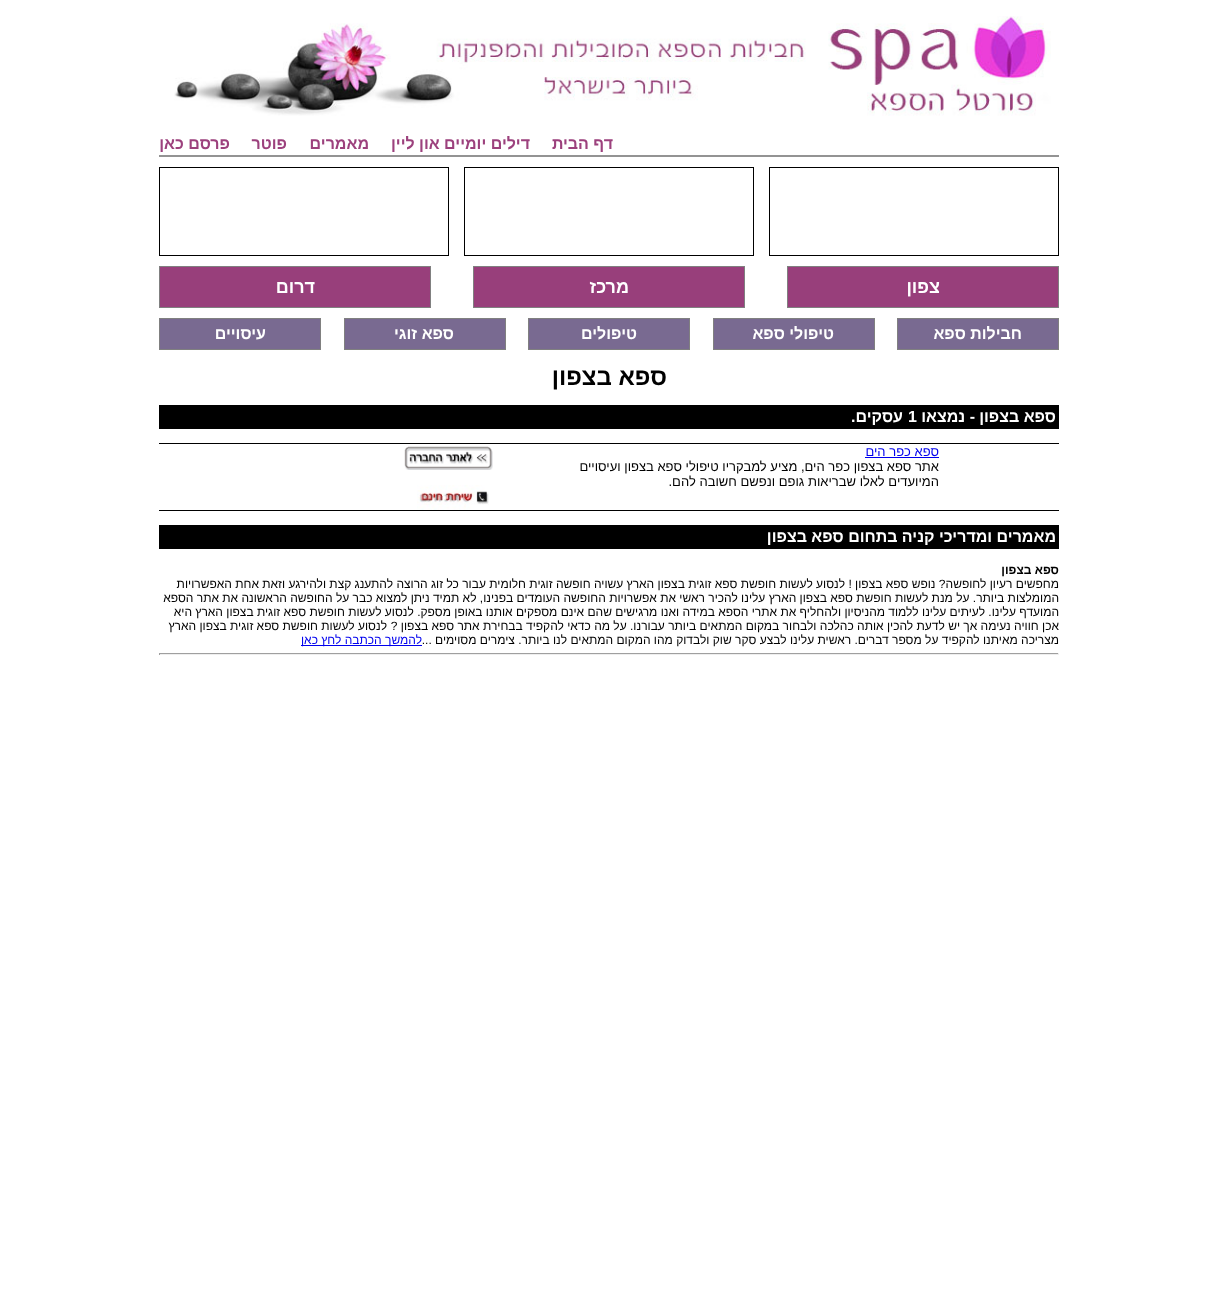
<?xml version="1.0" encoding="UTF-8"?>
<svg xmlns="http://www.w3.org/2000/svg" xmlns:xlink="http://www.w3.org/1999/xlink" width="1227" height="1299">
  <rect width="100%" height="100%" fill="#ffffff" />
  <image x="174" y="16" width="877" height="100" xlink:href="image1.png" />
  <rect x="159" y="155" width="900" height="2" fill="#939393" />
  <rect x="769.5" y="167.5" width="289" height="88" fill="none" stroke="#000000" />
  <rect x="464.5" y="167.5" width="289" height="88" fill="none" stroke="#000000" />
  <rect x="159.5" y="167.5" width="289" height="88" fill="none" stroke="#000000" />
  <rect x="787.5" y="266.5" width="271" height="41" fill="#983f7b" stroke="#808080" />
  <rect x="473.5" y="266.5" width="271" height="41" fill="#983f7b" stroke="#808080" />
  <rect x="159.5" y="266.5" width="271" height="41" fill="#983f7b" stroke="#808080" />
  <rect x="897.5" y="318.5" width="161" height="31" fill="#796a91" stroke="#808080" />
  <rect x="713.5" y="318.5" width="161" height="31" fill="#796a91" stroke="#808080" />
  <rect x="528.5" y="318.5" width="161" height="31" fill="#796a91" stroke="#808080" />
  <rect x="344.5" y="318.5" width="161" height="31" fill="#796a91" stroke="#808080" />
  <rect x="159.5" y="318.5" width="161" height="31" fill="#796a91" stroke="#808080" />
  <rect x="159" y="405" width="900" height="24" fill="#000000" />
  <rect x="159" y="443" width="900" height="1" fill="#000000" />
  <rect x="865" y="457" width="74" height="1" fill="#0000ee" />
  <image x="404" y="446" width="89" height="24" xlink:href="image2.png" />
  <image x="417" y="485" width="72" height="25" xlink:href="image3.png" />
  <rect x="159" y="510" width="900" height="1" fill="#000000" />
  <rect x="159" y="525" width="900" height="24" fill="#000000" />
  <rect x="301" y="645" width="121" height="1" fill="#0000ee" />
  <rect x="159" y="653" width="900" height="1" fill="#9f9f9f" />
  <rect x="1058" y="653" width="1" height="2" fill="#eeeeee" />
  <rect x="159" y="654" width="900" height="1" fill="#eeeeee" />
  <rect x="159" y="653" width="1" height="2" fill="#9f9f9f" />
  <text x="613" y="149" style="font-family: Liberation Sans; font-size: 16px; font-weight: bold; direction: rtl; fill: #9c417d">דף הבית</text>
  <text x="530" y="149" style="font-family: Liberation Sans; font-size: 16px; font-weight: bold; direction: rtl; fill: #9c417d">דילים יומיים און ליין</text>
  <text x="369" y="149" style="font-family: Liberation Sans; font-size: 16px; font-weight: bold; direction: rtl; fill: #9c417d">מאמרים</text>
  <text x="287" y="149" style="font-family: Liberation Sans; font-size: 16px; font-weight: bold; direction: rtl; fill: #9c417d">פוטר</text>
  <text x="230" y="149" style="font-family: Liberation Sans; font-size: 16px; font-weight: bold; direction: rtl; fill: #9c417d">פרסם כאן</text>
  <text x="940" y="293" style="font-family: Liberation Sans; font-size: 18px; font-weight: bold; direction: rtl; fill: #ffffff">צפון</text>
  <text x="629" y="293" style="font-family: Liberation Sans; font-size: 18px; font-weight: bold; direction: rtl; fill: #ffffff">מרכז</text>
  <text x="315" y="293" style="font-family: Liberation Sans; font-size: 18px; font-weight: bold; direction: rtl; fill: #ffffff">דרום</text>
  <text x="1022" y="339" style="font-family: Liberation Sans; font-size: 16px; font-weight: bold; direction: rtl; fill: #ffffff">חבילות ספא</text>
  <text x="834" y="339" style="font-family: Liberation Sans; font-size: 16px; font-weight: bold; direction: rtl; fill: #ffffff">טיפולי ספא</text>
  <text x="637" y="339" style="font-family: Liberation Sans; font-size: 16px; font-weight: bold; direction: rtl; fill: #ffffff">טיפולים</text>
  <text x="454" y="339" style="font-family: Liberation Sans; font-size: 16px; font-weight: bold; direction: rtl; fill: #ffffff">ספא זוגי</text>
  <text x="266" y="339" style="font-family: Liberation Sans; font-size: 16px; font-weight: bold; direction: rtl; fill: #ffffff">עיסויים</text>
  <text x="667" y="385" style="font-family: Liberation Sans; font-size: 24px; font-weight: bold; direction: rtl; fill: #000000">ספא בצפון</text>
  <text x="1056" y="422" style="font-family: Liberation Sans; font-size: 16px; font-weight: bold; direction: rtl; fill: #ffffff">ספא בצפון</text>
  <text x="975" y="422" style="font-family: Liberation Sans; font-size: 16px; font-weight: bold; direction: rtl; fill: #ffffff">- נמצאו</text>
  <text x="908" y="422" style="font-family: Liberation Sans; font-size: 16px; font-weight: bold; fill: #ffffff">1</text>
  <text x="903" y="422" style="font-family: Liberation Sans; font-size: 16px; font-weight: bold; direction: rtl; fill: #ffffff">עסקים.</text>
  <text x="939" y="456" style="font-family: Liberation Sans; font-size: 13px; direction: rtl; fill: #0000ee">ספא כפר הים</text>
  <text x="939" y="471" style="font-family: Liberation Sans; font-size: 13px; direction: rtl; fill: #000000">אתר ספא בצפון כפר הים, מציע למבקריו טיפולי ספא בצפון ועיסויים</text>
  <text x="939" y="486" style="font-family: Liberation Sans; font-size: 13px; direction: rtl; fill: #000000">המיועדים לאלו שבריאות גופם ונפשם חשובה להם.</text>
  <text x="1056" y="542" style="font-family: Liberation Sans; font-size: 16px; font-weight: bold; direction: rtl; fill: #ffffff">מאמרים ומדריכי קניה בתחום ספא בצפון</text>
  <text x="1059" y="574" style="font-family: Liberation Sans; font-size: 12px; font-weight: bold; direction: rtl; fill: #000000">ספא בצפון</text>
  <text x="1059" y="588" style="font-family: Liberation Sans; font-size: 12px; direction: rtl; fill: #000000">מחפשים רעיון לחופשה? נופש ספא בצפון ! לנסוע לעשות חופשת ספא זוגית בצפון הארץ עשויה חופשה זוגית חלומית עבור כל זוג הרוצה להתענג קצת ולהירגע וזאת אחת האפשרויות</text>
  <text x="1059" y="602" style="font-family: Liberation Sans; font-size: 12px; direction: rtl; fill: #000000">המומלצות ביותר. על מנת לעשות חופשת ספא בצפון הארץ עלינו להכיר ראשי את אפשרויות החופשה העומדים בפנינו, לא תמיד ניתן למצוא כבר על החופשה הראשונה את אתר הספא</text>
  <text x="1059" y="616" style="font-family: Liberation Sans; font-size: 12px; direction: rtl; fill: #000000">המועדף עלינו. לעיתים עלינו ללמוד מהניסיון ולהחליף את אתרי הספא במידה ואנו מרגישים שהם אינם מספקים אותנו באופן מספק. לנסוע לעשות חופשת ספא זוגית בצפון הארץ היא</text>
  <text x="1059" y="630" style="font-family: Liberation Sans; font-size: 12px; direction: rtl; fill: #000000">אכן חוויה נעימה אך יש לדעת להכין אותה כהלכה ולבחור במקום המתאים ביותר עבורנו. על מה כדאי להקפיד בבחירת אתר ספא בצפון ?</text>
  <text x="387" y="630" style="font-family: Liberation Sans; font-size: 12px; direction: rtl; fill: #000000">לנסוע לעשות חופשת ספא זוגית בצפון הארץ</text>
  <text x="1059" y="644" style="font-family: Liberation Sans; font-size: 12px; direction: rtl; fill: #000000">מצריכה מאיתנו להקפיד על מספר דברים. ראשית עלינו לבצע סקר שוק ולבדוק מהו המקום המתאים לנו ביותר. צימרים מסוימים ...</text>
  <text x="422" y="644" style="font-family: Liberation Sans; font-size: 12px; direction: rtl; fill: #0000ee">להמשך הכתבה לחץ כאן</text>
</svg>
